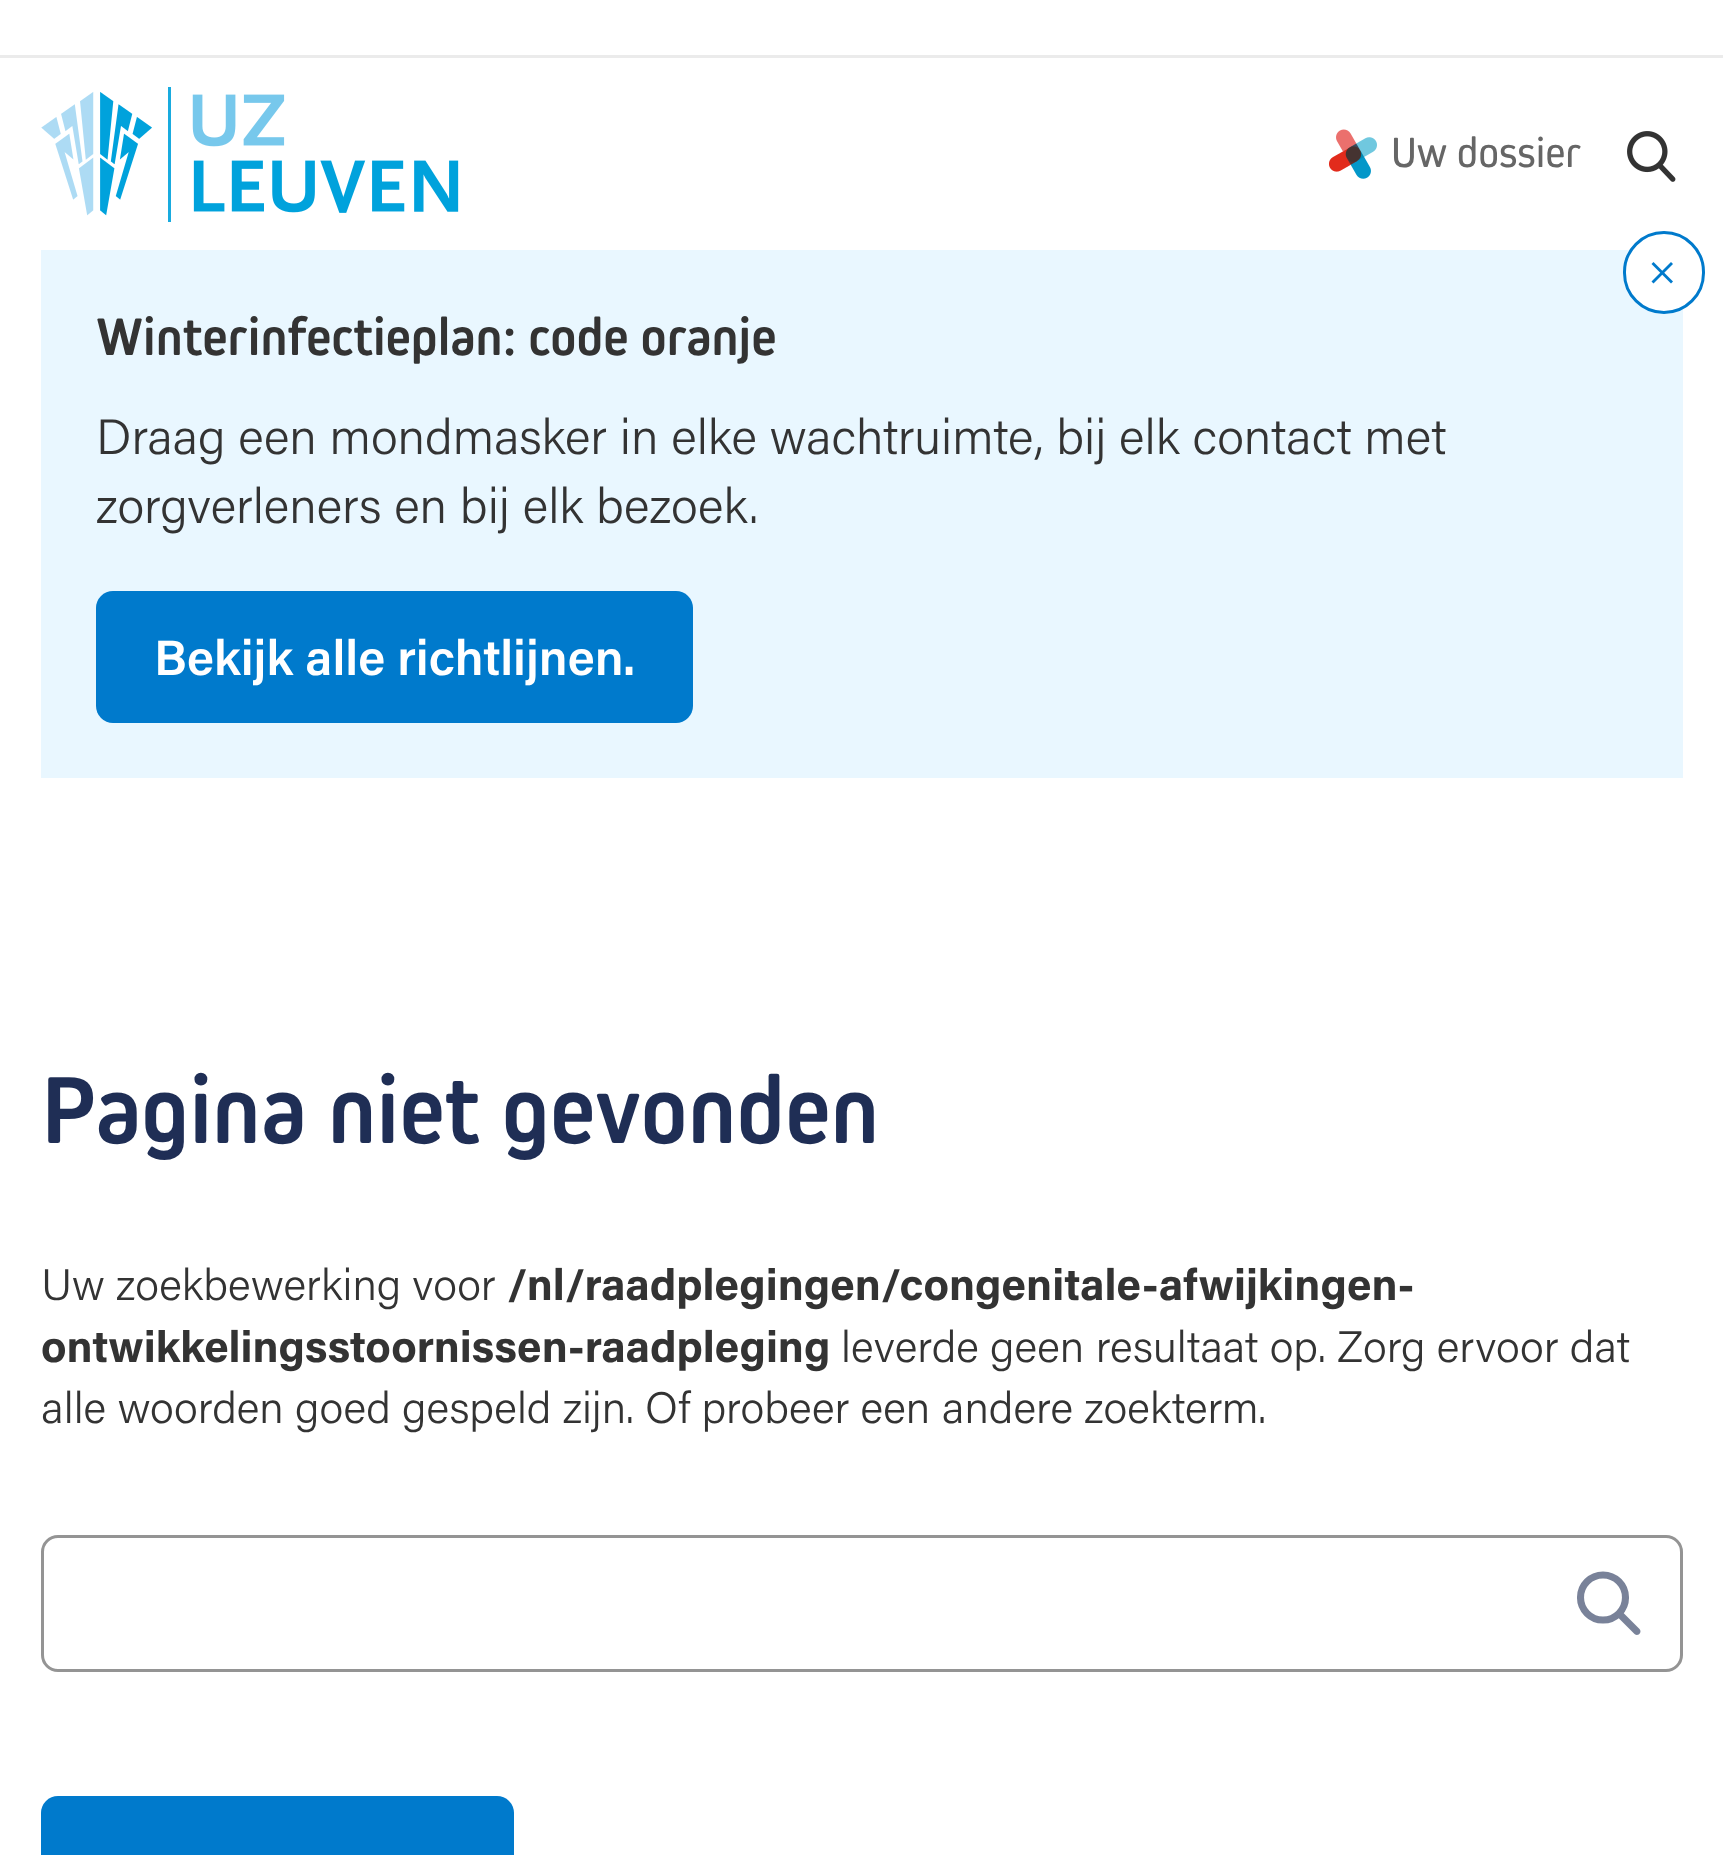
<?xml version="1.0" encoding="UTF-8"?>
<svg xmlns="http://www.w3.org/2000/svg" xmlns:xlink="http://www.w3.org/1999/xlink" width="1723" height="1855">
  <rect width="100%" height="100%" fill="#ffffff" />
  <rect y="55" width="1723" height="3" fill="#ebebeb" />
  <image x="41" y="87" width="418" height="135" xlink:href="image1.png" />
  <image x="1329" y="129" width="48" height="50" xlink:href="image2.png" />
  <image x="1627" y="131" width="49" height="51" xlink:href="image3.png" />
  <rect x="41" y="250" width="1642" height="528" fill="#e9f7ff" />
  <rect x="1624.5" y="232.5" width="79" height="80" rx="39.5" fill="#ffffff" stroke="#007acc" stroke-width="3" />
  <path d="M 1653.5 262 l 19.5 19.5 l -2 2 l -19.5 -19.5 z" fill="#007acc" />
  <path d="M 1651.5 281.5 l 19.5 -19.5 l 2 2 l -19.5 19.5 z" fill="#007acc" />
  <rect x="96" y="591" width="597" height="132" rx="17" fill="#007acc" />
  <rect x="42.5" y="1536.5" width="1639" height="134" rx="15.5" fill="none" stroke="#949494" stroke-width="3" />
  <circle cx="1603" cy="1597.5" r="22.5" fill="none" stroke="#798299" stroke-width="7.1" />
  <path d="M 1634.5 1634 c 3.5 3 8 -1.5 5 -5 z m 5 -5 l -19.5 -19.5 l -5 5 l 19.5 19.5 z" fill="#798299" />
  <rect x="41" y="1796" width="473" height="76" rx="17" fill="#007acc" />
  <text x="1391" y="167" style="font-family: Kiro; font-size: 44px; fill: #666666">Uw dossier</text>
  <text x="96" y="355" style="font-family: Kiro; font-size: 55px; font-weight: bold; fill: #333333">Winterinfectieplan: code oranje</text>
  <text x="96" y="454" style="font-family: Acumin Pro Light; font-size: 49.5px; font-weight: 300; fill: #333333">Draag een mondmasker in elke wachtruimte, bij elk contact met</text>
  <text x="96" y="523" style="font-family: Acumin Pro Light; font-size: 49.5px; font-weight: 300; fill: #333333">zorgverleners en bij elk bezoek.</text>
  <text x="154" y="675" style="font-family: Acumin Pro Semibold; font-size: 49.5px; font-weight: 600; fill: #ffffff">Bekijk alle richtlijnen.</text>
  <text x="41" y="1143" style="font-family: Kiro; font-size: 99px; font-weight: bold; fill: #1f2e55">Pagina niet gevonden</text>
  <text x="41" y="1300" style="font-family: Acumin Pro Light; font-size: 44px; font-weight: 300; fill: #333333">Uw zoekbewerking voor</text>
  <text x="507" y="1300" style="font-family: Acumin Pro; font-size: 44px; font-weight: bold; fill: #333333">/nl/raadplegingen/congenitale-afwijkingen-</text>
  <text x="41" y="1362" style="font-family: Acumin Pro; font-size: 44px; font-weight: bold; fill: #333333">ontwikkelingsstoornissen-raadpleging</text>
  <text x="841" y="1362" style="font-family: Acumin Pro Light; font-size: 44px; font-weight: 300; fill: #333333">leverde geen resultaat op. Zorg ervoor dat</text>
  <text x="41" y="1423" style="font-family: Acumin Pro Light; font-size: 44px; font-weight: 300; fill: #333333">alle woorden goed gespeld zijn. Of probeer een andere zoekterm.</text>
</svg>
